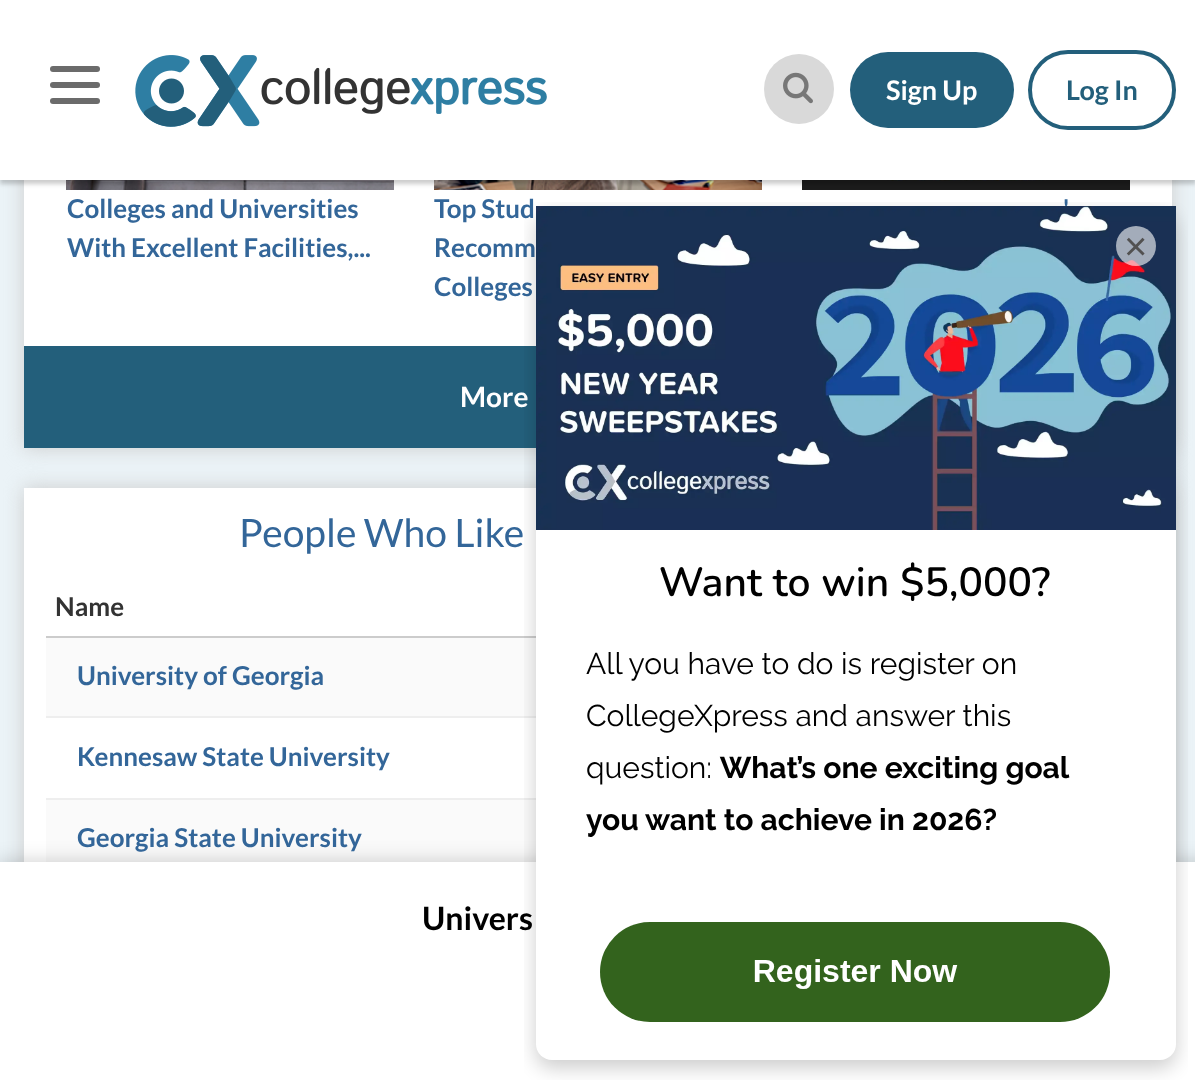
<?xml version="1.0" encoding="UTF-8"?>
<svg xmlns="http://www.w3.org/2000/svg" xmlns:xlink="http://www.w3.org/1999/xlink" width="1195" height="1080">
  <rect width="100%" height="100%" fill="#ebf3f7" />
  <rect x="24" y="-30" width="1148" height="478" fill="#cccccc" filter="blur(10px)" />
  <rect x="24" y="180" width="1148" height="166" fill="#ffffff" />
  <image x="66" y="180" width="328" height="10" xlink:href="image3.png" />
  <image x="434" y="180" width="328" height="10" xlink:href="image4.png" />
  <image x="802" y="180" width="328" height="10" xlink:href="image5.png" />
  <rect y="4" width="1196" height="180" fill="#000000" fill-opacity="0.2" filter="blur(2px)" />
  <rect width="1195" height="180" fill="#ffffff" />
  <rect x="50" y="66" width="50" height="6" rx="3" fill="#6b6b6b" />
  <rect x="50" y="82" width="50" height="6" rx="3" fill="#6b6b6b" />
  <rect x="50" y="98" width="50" height="6" rx="3" fill="#6b6b6b" />
  <image x="135" y="55" width="412" height="72" xlink:href="image1.png" />
  <circle cx="799" cy="89" r="35" fill="#d9d9d9" />
  <image x="783" y="72" width="30" height="32" xlink:href="image2.png" />
  <rect x="850" y="52" width="164" height="76" rx="38" fill="#235f7b" />
  <rect x="1030" y="52" width="144" height="76" rx="38" fill="none" stroke="#235f7b" stroke-width="4" />
  <rect x="24" y="346" width="512" height="102" fill="#235f7b" />
  <rect x="24" y="488" width="1148" height="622" fill="#cccccc" filter="blur(10px)" />
  <rect x="24" y="488" width="512" height="374" fill="#ffffff" />
  <rect x="46" y="636" width="490" height="2" fill="#cccccc" />
  <rect x="46" y="638" width="490" height="78" fill="#fafafa" />
  <rect x="46" y="716" width="490" height="2" fill="#eeeeee" />
  <rect x="46" y="800" width="490" height="62" fill="#fafafa" />
  <rect x="46" y="798" width="490" height="2" fill="#eeeeee" />
  <rect x="-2" y="862" width="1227" height="218" fill="#000000" fill-opacity="0.2" filter="blur(10px)" />
  <rect y="862" width="1195" height="218" fill="#ffffff" />
  <text x="886" y="100" style="font-family: Lato; font-size: 27px; font-weight: bold; fill: #ffffff">Sign Up</text>
  <text x="1066" y="100" style="font-family: Lato; font-size: 27px; font-weight: bold; fill: #235f7b">Log In</text>
  <text x="67" y="218" style="font-family: Lato; font-size: 26px; font-weight: bold; fill: #336699">Colleges and Universities</text>
  <text x="67" y="257" style="font-family: Lato; font-size: 26px; font-weight: bold; fill: #336699">With Excellent Facilities,...</text>
  <text x="434" y="218" style="font-family: Lato; font-size: 26px; font-weight: bold; fill: #336699">Top Stud</text>
  <text x="434" y="257" style="font-family: Lato; font-size: 26px; font-weight: bold; fill: #336699">Recomm</text>
  <text x="434" y="296" style="font-family: Lato; font-size: 26px; font-weight: bold; fill: #336699">Colleges</text>
  <text x="1063" y="218" style="font-family: Lato; font-size: 26px; font-weight: bold; fill: #336699">'</text>
  <text x="460" y="407" style="font-family: Lato; font-size: 28px; font-weight: bold; fill: #ffffff">More</text>
  <text x="239" y="547" style="font-family: Lato; font-size: 39px; fill: #336699">People Who Like</text>
  <text x="55" y="616" style="font-family: Lato; font-size: 26px; font-weight: bold; fill: #333333">Name</text>
  <text x="77" y="685" style="font-family: Lato; font-size: 26px; font-weight: bold; fill: #336699">University of Georgia</text>
  <text x="77" y="766" style="font-family: Lato; font-size: 26px; font-weight: bold; fill: #336699">Kennesaw State University</text>
  <text x="77" y="847" style="font-family: Lato; font-size: 26px; font-weight: bold; fill: #336699">Georgia State University</text>
  <text x="422" y="930" style="font-family: Lato; font-size: 32px; font-weight: bold; fill: #000000">Univers</text>
  <image x="524" y="202" width="664" height="878" xlink:href="image6.png" />
  <circle cx="1136" cy="246" r="20" fill="#ffffff" fill-opacity="0.6" />
  <text x="1124" y="260" style="font-family: Liberation Sans; font-size: 40px; fill: #525151">×</text>
</svg>
